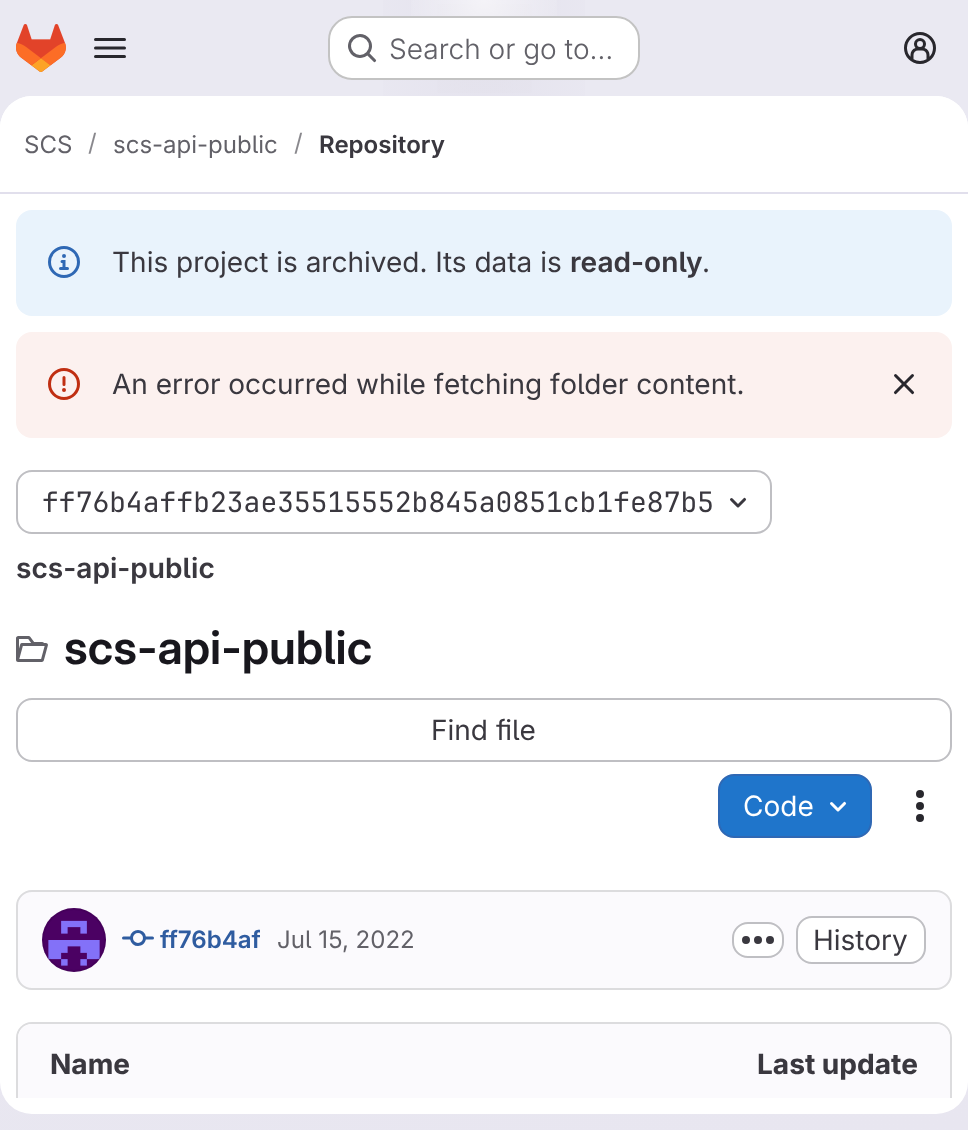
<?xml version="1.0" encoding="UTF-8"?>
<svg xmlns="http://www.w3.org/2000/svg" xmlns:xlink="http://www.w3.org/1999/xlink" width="968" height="1130">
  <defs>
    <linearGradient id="g1" gradientUnits="userSpaceOnUse" x1="595" y1="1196" x2="373" y2="-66"><stop offset="0" stop-color="#e8e6f0" /><stop offset="0.7" stop-color="#eae9f2" /></linearGradient>
    <radialGradient id="g2" gradientUnits="userSpaceOnUse" cx="0" cy="0" r="1" gradientTransform="matrix(484 0 0 1130 484 0)"><stop offset="0" stop-color="#e4e2ed" /><stop offset="0.29" stop-color="#e4e2ed" stop-opacity="0" /></radialGradient>
    <radialGradient id="g3" gradientUnits="userSpaceOnUse" cx="0" cy="0" r="1" gradientTransform="matrix(484 0 0 1130 484 0)"><stop offset="0" stop-color="#e4e2ec" /><stop offset="0.21" stop-color="#e4e2ec" stop-opacity="0" /></radialGradient>
    <radialGradient id="g4" gradientUnits="userSpaceOnUse" cx="484" cy="0" r="1229"><stop offset="0" stop-color="#ffffff" stop-opacity="0.6" /><stop offset="0.07" stop-color="#ffffff" stop-opacity="0" /></radialGradient>
    <clipPath id="clip1"><rect y="194" width="968" height="904" /></clipPath>
    <clipPath id="clip2"><rect x="122" y="922" width="138" height="36" /></clipPath>
  </defs>
  <rect width="100%" height="100%" fill="#ffffff" />
  <rect width="968" height="1130" fill="url(#g1)" />
  <rect x="383" width="202" height="96" fill="url(#g2)" />
  <rect x="437" y="4" width="95" height="89" fill="url(#g3)" />
  <rect x="411" width="146" height="16" fill="url(#g4)" />
  <image x="16" y="24" width="50" height="48" xlink:href="image1.png" />
  <image x="94" y="38" width="32" height="20" xlink:href="image2.png" />
  <rect x="328" y="16" width="312" height="64" rx="24" fill="#ffffff" />
  <rect x="329" y="17" width="310" height="62" rx="23" fill="none" stroke="#050506" stroke-opacity="0.24" stroke-width="2" />
  <image x="348" y="34" width="29" height="29" xlink:href="image3.png" />
  <image x="904" y="32" width="32" height="32" xlink:href="image4.png" />
  <rect y="96" width="968" height="1018" rx="32" fill="#ffffff" />
  <path d="M 32 96 h 904 c 17.5 0 32 14.5 32 32 v 66 h -968 v -66 c 0 -17.5 14.5 -32 32 -32 z" fill="#ffffff" />
  <rect y="192" width="968" height="2" fill="#e1dfec" />
  <rect x="16" y="210" width="936" height="106" rx="16" fill="#e9f3fc" />
  <image x="48" y="246" width="32" height="32" xlink:href="image5.png" />
  <rect x="16" y="332" width="936" height="106" rx="16" fill="#fcf1ef" />
  <image x="48" y="368" width="32" height="32" xlink:href="image6.png" />
  <image x="893" y="374" width="22" height="21" xlink:href="image7.png" />
  <rect x="17" y="471" width="754" height="62" rx="15" fill="none" stroke="#bfbfc3" stroke-width="2" />
  <image x="730" y="497" width="17" height="11" xlink:href="image8.png" />
  <image x="16" y="636" width="32" height="26" xlink:href="image9.png" />
  <rect x="17" y="699" width="934" height="62" rx="15" fill="none" stroke="#bfbfc3" stroke-width="2" />
  <rect x="719" y="775" width="152" height="62" rx="15" fill="#1f75cb" stroke="#2f68b4" stroke-width="2" />
  <image x="830" y="801" width="17" height="11" xlink:href="image10.png" />
  <image x="916" y="790" width="8" height="32" xlink:href="image11.png" />
  <rect x="17" y="891" width="934" height="98" rx="15" fill="#fbfafd" stroke="#dcdcde" stroke-width="2" />
  <image x="42" y="908" width="64" height="64" xlink:href="image12.png" />
  <circle cx="74" cy="940" r="31" fill="none" stroke="#050506" stroke-opacity="0.08" stroke-width="2" />
  <image x="122" y="930" width="32" height="16" xlink:href="image13.png" />
  <rect x="733" y="923" width="50" height="34" rx="15" fill="#ffffff" stroke="#bfbfc3" stroke-width="2" />
  <image x="742" y="936" width="32" height="8" xlink:href="image14.png" />
  <rect x="797" y="917" width="128" height="46" rx="15" fill="#ffffff" stroke="#bfbfc3" stroke-width="2" />
  <g clip-path="url(#clip1)">
    <path d="M 32 1022 c -9 0 -16 7 -16 16 v 72 l 2 1 v -73 c 0 -8 6 -14 14 -14 h 904 c 8 0 14 6 14 14 v 73 l 2 -1 v -72 c 0 -9 -7 -16 -16 -16 z" fill="#dcdcde" />
  </g>
  <path d="M 32 1024 h 452 v 74 h -466 v -60 c 0 -7.5 6.5 -14 14 -14 z" fill="#fbfafd" />
  <path d="M 484 1024 h 452 c 7.5 0 14 6.5 14 14 v 60 h -466 z" fill="#fbfafd" />
  <text x="389" y="59" style="font-family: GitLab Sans; font-size: 28px; font-weight: 300; fill: #626168">Search or go to…</text>
  <text x="24" y="153" style="font-family: GitLab Sans; font-size: 24px; fill: #626168">SCS</text>
  <text x="88" y="151" style="font-family: GitLab Sans; font-size: 24px; fill: #89888d">/</text>
  <text x="113" y="153" style="font-family: GitLab Sans; font-size: 24px; fill: #626168">scs-api-public</text>
  <text x="294" y="151" style="font-family: GitLab Sans; font-size: 24px; fill: #89888d">/</text>
  <text x="319" y="153" style="font-family: 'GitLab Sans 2'; font-size: 24px; font-weight: 600; fill: #3a383f">Repository</text>
  <text x="112" y="272" style="font-family: GitLab Sans; font-size: 28px; fill: #3a383f">This project is archived. Its data is</text>
  <text x="570" y="272" style="font-family: 'GitLab Sans 2'; font-size: 28px; font-weight: 600; fill: #3a383f">read-only</text>
  <text x="702" y="272" style="font-family: GitLab Sans; font-size: 28px; fill: #3a383f">.</text>
  <text x="112" y="394" style="font-family: GitLab Sans; font-size: 28px; fill: #3a383f">An error occurred while fetching folder content.</text>
  <text x="42" y="512" style="font-family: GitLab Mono; font-size: 28px; fill: #3a383f">ff76b4affb23ae35515552b845a0851cb1fe87b5</text>
  <text x="16" y="578" style="font-family: 'GitLab Sans 2'; font-size: 28px; font-weight: 600; fill: #3a383f">scs-api-public</text>
  <text x="64" y="664" style="font-family: GitLab Sans; font-size: 46px; font-weight: 600; fill: #18171d">scs-api-public</text>
  <text x="431" y="740" style="font-family: GitLab Sans; font-size: 28px; fill: #3a383f">Find file</text>
  <text x="743" y="816" style="font-family: GitLab Sans; font-size: 28px; fill: #ffffff">Code</text>
  <g clip-path="url(#clip2)">
    <text x="160" y="948" style="font-family: 'GitLab Sans 2'; font-size: 24px; font-weight: 600; fill: #2f5ca0">ff76b4af</text>
  </g>
  <text x="277" y="948" style="font-family: GitLab Sans; font-size: 24px; fill: #626168">Jul 15, 2022</text>
  <text x="813" y="950" style="font-family: GitLab Sans; font-size: 28px; fill: #3a383f">History</text>
  <text x="50" y="1074" style="font-family: GitLab Sans; font-size: 28px; font-weight: bold; fill: #3a383f">Name</text>
  <text x="757" y="1074" style="font-family: GitLab Sans; font-size: 28px; font-weight: bold; fill: #3a383f">Last update</text>
</svg>
